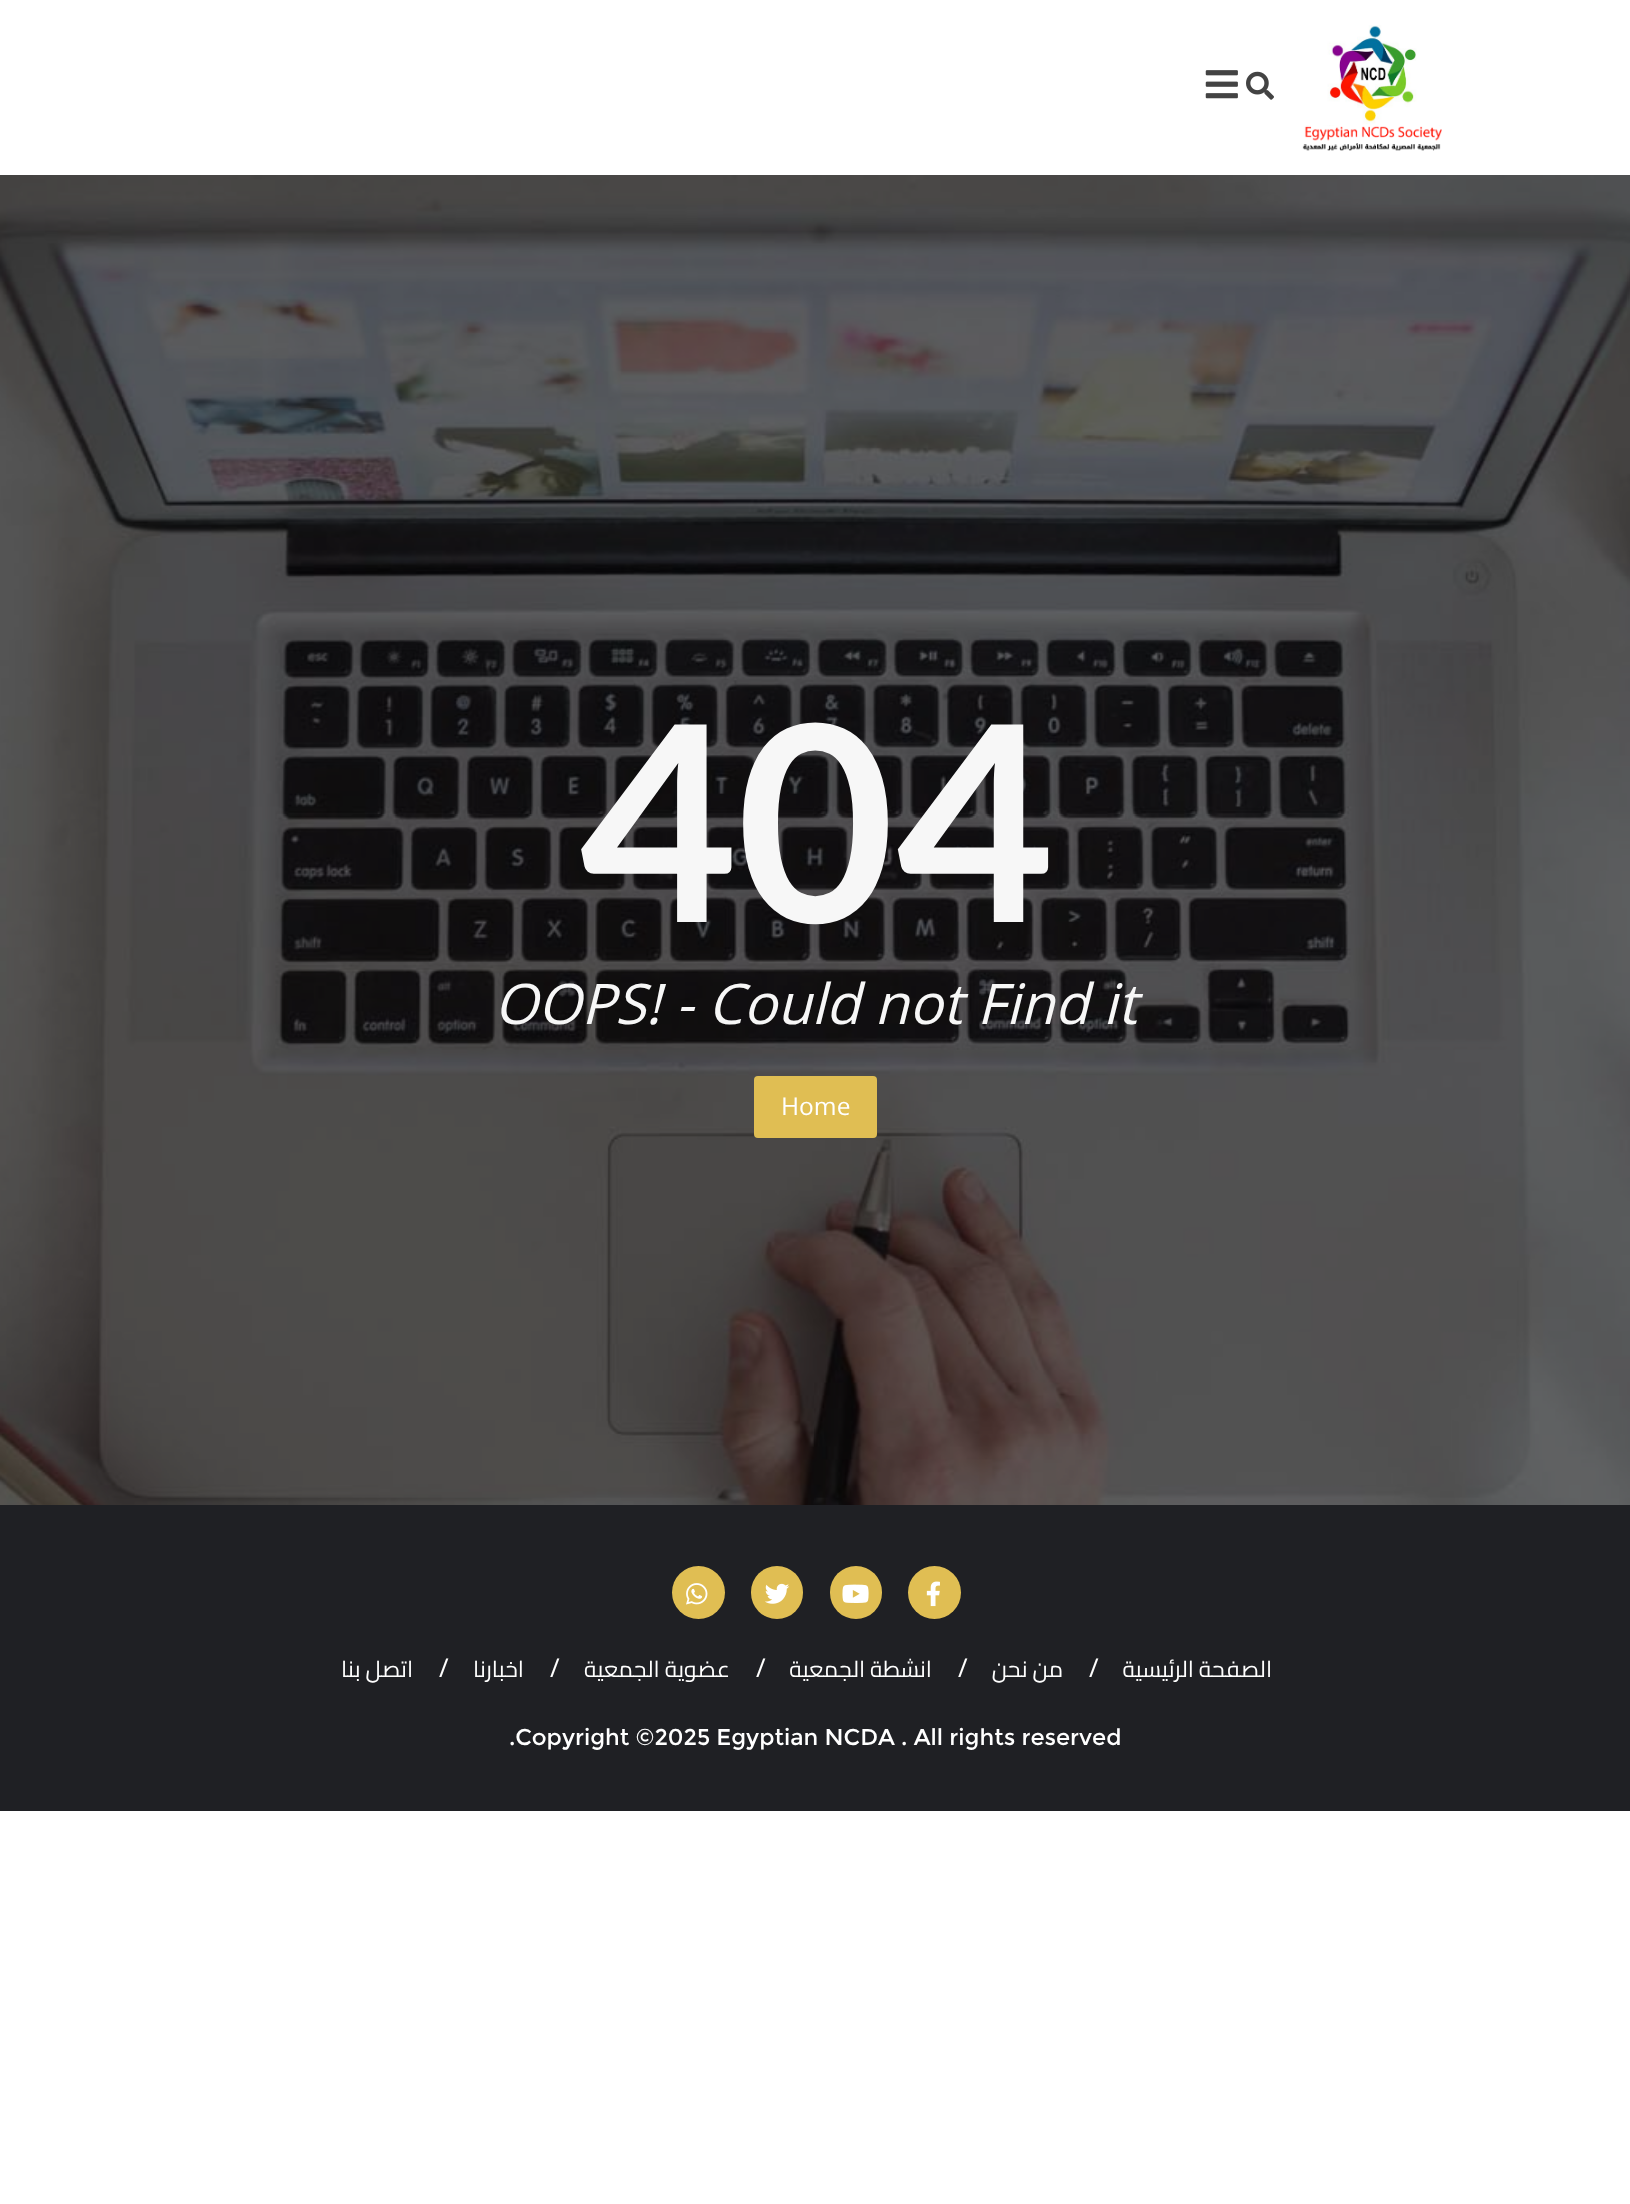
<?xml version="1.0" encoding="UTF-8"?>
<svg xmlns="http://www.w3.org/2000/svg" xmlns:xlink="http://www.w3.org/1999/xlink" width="1630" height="2204">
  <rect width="100%" height="100%" fill="#ffffff" />
  <image x="1205" y="70" width="33" height="29" xlink:href="image1.png" />
  <image x="1246" y="71" width="28" height="29" xlink:href="image2.png" />
  <image x="1302" y="25" width="140" height="126" xlink:href="image3.png" />
  <image x="0" y="175" width="1630" height="1330" xlink:href="image4.png" />
  <rect x="754" y="1076" width="123" height="62" rx="4" fill="#e0be53" />
  <rect y="1505" width="1630" height="306" fill="#1f2024" />
  <circle cx="698.5" cy="1592.5" r="26.5" fill="#e0be53" />
  <image x="686" y="1583" width="22" height="22" xlink:href="image5.png" />
  <rect x="751" y="1566" width="52" height="53" rx="26" fill="#e0be53" />
  <image x="765" y="1583" width="25" height="21" xlink:href="image6.png" />
  <rect x="830" y="1566" width="52" height="53" rx="26" fill="#e0be53" />
  <image x="842" y="1584" width="27" height="19" xlink:href="image7.png" />
  <circle cx="934.5" cy="1592.5" r="26.5" fill="#e0be53" />
  <image x="926" y="1581" width="14" height="26" xlink:href="image8.png" />
  <text x="578" y="922" style="font-family: Lato; font-size: 273px; font-weight: bold; fill: #f7f7f7">404</text>
  <text x="494" y="1024" style="font-family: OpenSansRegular; font-size: 56px; font-style: italic; fill: #f7f7f7">OOPS! - Could not Find it</text>
  <text x="781" y="1115" style="font-family: OpenSansRegular; font-size: 24.5px; fill: #ffffff">Home</text>
  <text x="413" y="1677" style="font-family: Cairo; font-size: 22.75px; direction: rtl; fill: #ffffff">اتصل بنا</text>
  <text x="439" y="1677" style="font-family: OpenSansRegular; font-size: 26px; fill: #ffffff">/</text>
  <text x="524" y="1677" style="font-family: Cairo; font-size: 22.75px; direction: rtl; fill: #ffffff">اخبارنا</text>
  <text x="550" y="1677" style="font-family: OpenSansRegular; font-size: 26px; fill: #ffffff">/</text>
  <text x="730" y="1677" style="font-family: Cairo; font-size: 22.75px; direction: rtl; fill: #ffffff">عضوية الجمعية</text>
  <text x="756" y="1677" style="font-family: OpenSansRegular; font-size: 26px; fill: #ffffff">/</text>
  <text x="932" y="1677" style="font-family: Cairo; font-size: 22.75px; direction: rtl; fill: #ffffff">انشطة الجمعية</text>
  <text x="958" y="1677" style="font-family: OpenSansRegular; font-size: 26px; fill: #ffffff">/</text>
  <text x="1063" y="1677" style="font-family: Cairo; font-size: 22.75px; direction: rtl; fill: #ffffff">من نحن</text>
  <text x="1089" y="1677" style="font-family: OpenSansRegular; font-size: 26px; fill: #ffffff">/</text>
  <text x="1272" y="1677" style="font-family: Cairo; font-size: 22.75px; direction: rtl; fill: #ffffff">الصفحة الرئيسية</text>
  <text x="509" y="1745" style="font-family: Montserrat; font-size: 22.75px; fill: #ffffff">.Copyright ©2025 Egyptian NCDA . All rights reserved</text>
</svg>
